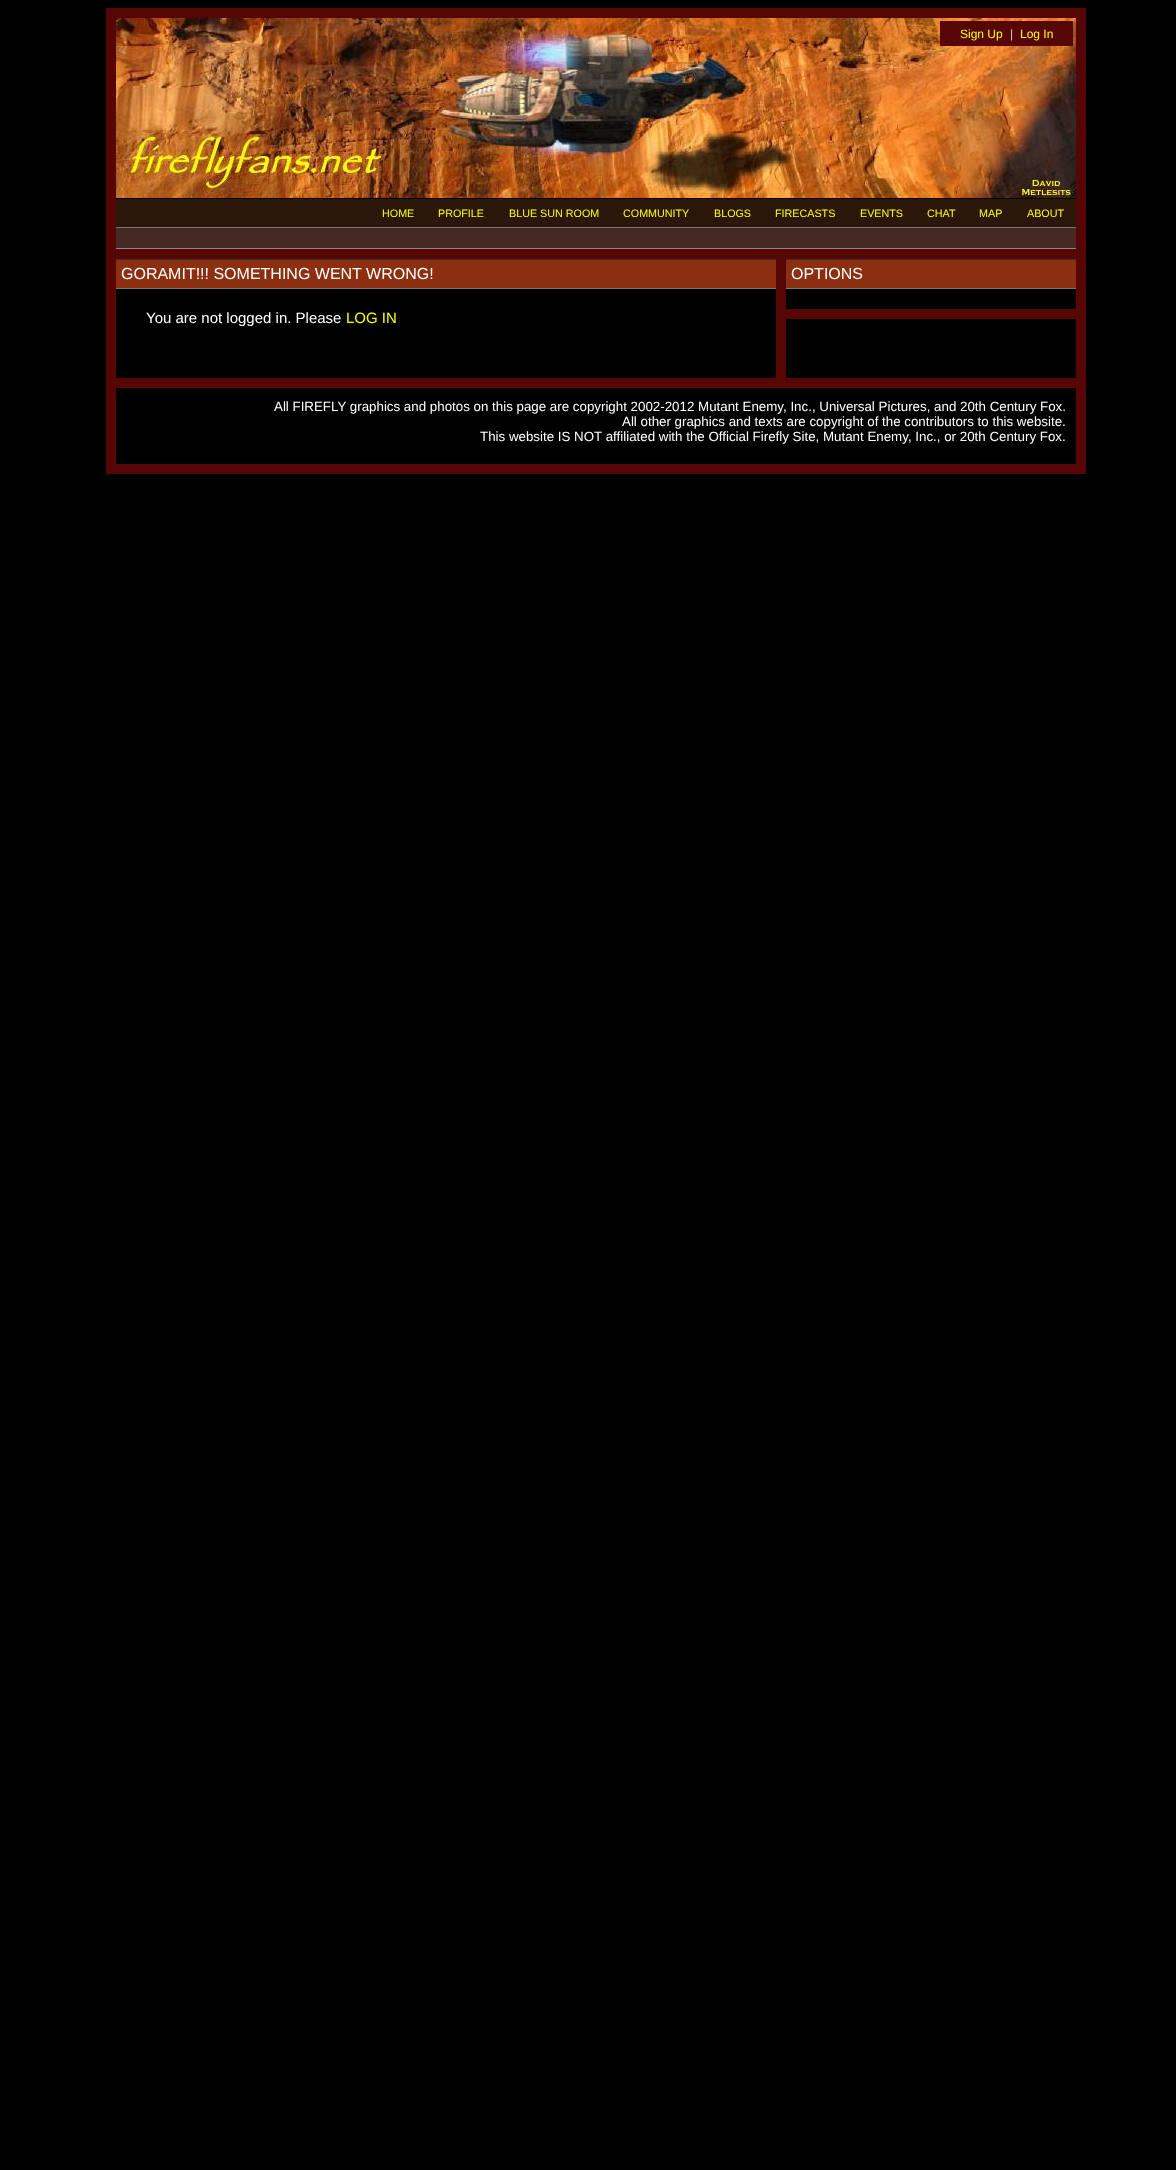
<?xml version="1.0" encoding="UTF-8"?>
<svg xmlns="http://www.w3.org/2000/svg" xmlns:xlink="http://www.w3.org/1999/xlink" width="1176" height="2170">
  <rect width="100%" height="100%" fill="#000000" />
  <rect x="111" y="13" width="970" height="456" fill="none" stroke="#560605" stroke-width="10" />
  <image x="116" y="18" width="960" height="180" xlink:href="image1.png" />
  <rect x="940" y="21" width="133" height="25" fill="#560605" />
  <rect x="116" y="199" width="960" height="28" fill="#2a1709" />
  <rect x="116" y="227" width="960" height="1" fill="#777777" />
  <rect x="116" y="228" width="960" height="20" fill="#452925" />
  <rect x="116" y="248" width="960" height="1" fill="#888888" />
  <rect x="116" y="249" width="960" height="10" fill="#560605" />
  <rect x="116" y="378" width="960" height="10" fill="#560605" />
  <rect x="776" y="259" width="10" height="119" fill="#560605" />
  <rect x="116" y="260" width="660" height="28" fill="#8c2f10" />
  <rect x="116" y="259" width="660" height="1" fill="#333333" />
  <rect x="116" y="288" width="660" height="1" fill="#777777" />
  <rect x="786" y="309" width="290" height="10" fill="#560605" />
  <rect x="786" y="260" width="290" height="28" fill="#8c2f10" />
  <rect x="786" y="259" width="290" height="1" fill="#333333" />
  <rect x="786" y="288" width="290" height="1" fill="#777777" />
  <text x="960" y="38" style="font-family: Liberation Sans; font-size: 12px; fill: #ffff00">Sign Up</text>
  <text x="1010" y="38" style="font-family: Liberation Sans; font-size: 12px; fill: #cccccc">|</text>
  <text x="1020" y="38" style="font-family: Liberation Sans; font-size: 12px; fill: #ffff00">Log In</text>
  <text x="382" y="217" style="font-family: Liberation Sans; font-size: 10.75px; fill: #ffff00">HOME</text>
  <text x="438" y="217" style="font-family: Liberation Sans; font-size: 10.75px; fill: #ffff00">PROFILE</text>
  <text x="509" y="217" style="font-family: Liberation Sans; font-size: 10.75px; fill: #ffff00">BLUE SUN ROOM</text>
  <text x="623" y="217" style="font-family: Liberation Sans; font-size: 10.75px; fill: #ffff00">COMMUNITY</text>
  <text x="714" y="217" style="font-family: Liberation Sans; font-size: 10.75px; fill: #ffff00">BLOGS</text>
  <text x="775" y="217" style="font-family: Liberation Sans; font-size: 10.75px; fill: #ffff00">FIRECASTS</text>
  <text x="860" y="217" style="font-family: Liberation Sans; font-size: 10.75px; fill: #ffff00">EVENTS</text>
  <text x="927" y="217" style="font-family: Liberation Sans; font-size: 10.75px; fill: #ffff00">CHAT</text>
  <text x="979" y="217" style="font-family: Liberation Sans; font-size: 10.75px; fill: #ffff00">MAP</text>
  <text x="1027" y="217" style="font-family: Liberation Sans; font-size: 10.75px; fill: #ffff00">ABOUT</text>
  <text x="121" y="279" style="font-family: Liberation Sans; font-size: 16px; fill: #ffffff">GORAMIT!!! SOMETHING WENT WRONG!</text>
  <text x="146" y="323" style="font-family: Liberation Sans; font-size: 15px; fill: #ffffff">You are not logged in. Please</text>
  <text x="346" y="323" style="font-family: Liberation Sans; font-size: 15px; fill: #ffff00">LOG IN</text>
  <text x="791" y="279" style="font-family: Liberation Sans; font-size: 16px; fill: #ffffff">OPTIONS</text>
  <text x="274" y="411" style="font-family: Liberation Sans; font-size: 13.33px; fill: #ffffff">All FIREFLY graphics and photos on this page are copyright 2002-2012 Mutant Enemy, Inc., Universal Pictures, and 20th Century Fox.</text>
  <text x="622" y="426" style="font-family: Liberation Sans; font-size: 13.33px; fill: #ffffff">All other graphics and texts are copyright of the contributors to this website.</text>
  <text x="480" y="441" style="font-family: Liberation Sans; font-size: 13.33px; fill: #ffffff">This website IS NOT affiliated with the Official Firefly Site, Mutant Enemy, Inc., or 20th Century Fox.</text>
</svg>
